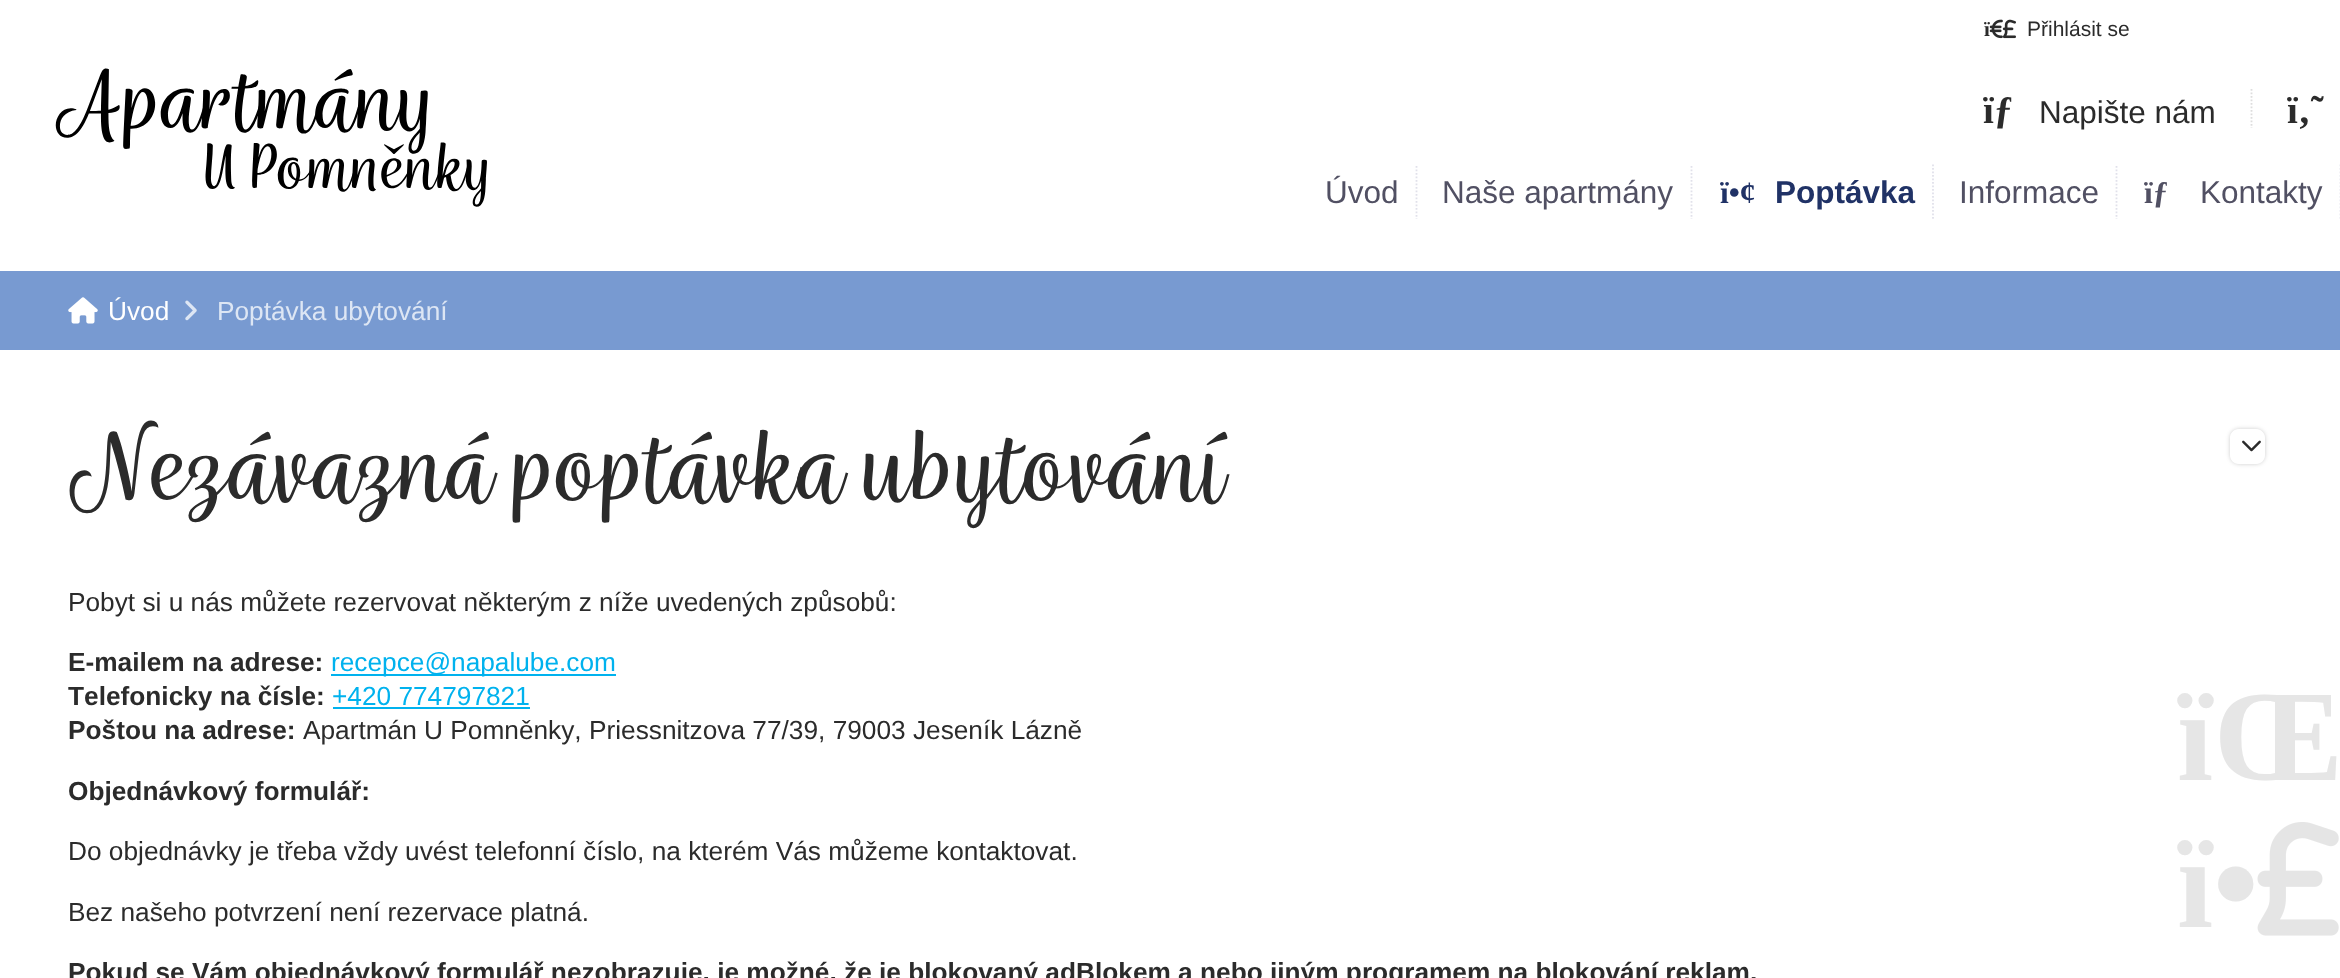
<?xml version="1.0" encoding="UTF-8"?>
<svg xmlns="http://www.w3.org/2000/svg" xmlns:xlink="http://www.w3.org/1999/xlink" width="2340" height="978">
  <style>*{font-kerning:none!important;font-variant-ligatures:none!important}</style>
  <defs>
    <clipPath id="clip1"><path d="M 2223 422 h 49 v 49 h -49 z m 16 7 h 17 c 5 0 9 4 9 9 v 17 c 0 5 -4 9 -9 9 h -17 c -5 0 -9 -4 -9 -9 v -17 c 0 -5 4 -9 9 -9 z" clip-rule="evenodd" /></clipPath>
  </defs>
  <rect width="100%" height="100%" fill="#ffffff" />
  <image x="1989" y="19" width="27" height="20" xlink:href="image1.png" />
  <image x="55" y="68" width="432" height="139" xlink:href="image2.png" />
  <path d="M 2251.5 89 v 39" fill="none" stroke="#dddddd" stroke-width="1.8" stroke-dasharray="1.75 1.75" />
  <path d="M 1416.5 166 v 53" fill="none" stroke="#e1e1ea" stroke-width="1.8" stroke-dasharray="1.75 1.75" />
  <path d="M 1691.5 166 v 53" fill="none" stroke="#e1e1ea" stroke-width="1.8" stroke-dasharray="1.75 1.75" />
  <path d="M 1933 164.5 v 54.5" fill="none" stroke="#e1e1ea" stroke-width="1.8" stroke-dasharray="1.75 1.75" />
  <path d="M 2116.5 166 v 53" fill="none" stroke="#e1e1ea" stroke-width="1.8" stroke-dasharray="1.75 1.75" />
  <path d="M 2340.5 164.5 v 54.5" fill="none" stroke="#e1e1ea" stroke-width="1.8" stroke-dasharray="1.75 1.75" />
  <rect y="271" width="2340" height="79" fill="#789ad1" />
  <image x="68" y="297" width="30" height="27" xlink:href="image3.png" />
  <image x="185" y="300" width="12" height="21" xlink:href="image4.png" />
  <rect x="331" y="674" width="285" height="2" fill="#00b2ee" />
  <rect x="333" y="707" width="197" height="2" fill="#00b2ee" />
  <g clip-path="url(#clip1)">
    <rect x="2230" y="429" width="35" height="35" rx="9" fill="#000000" fill-opacity="0.2" filter="blur(2px)" />
  </g>
  <rect x="2230" y="429" width="35" height="35" rx="9" fill="#ffffff" fill-opacity="0.5" />
  <image x="2242" y="440" width="19" height="12" xlink:href="image5.png" />
  <image x="2257" y="822" width="82" height="114" xlink:href="image6.png" />
  <text x="1984" y="36" style="font-family: Liberation Serif; font-size: 21px; font-weight: bold; fill: #2b2b2b">ï</text>
  <text x="2027" y="36" style="font-family: Liberation Sans; font-size: 21px; fill: #2b2b2b">Přihlásit se</text>
  <text x="1983" y="123" style="font-family: Liberation Serif; font-size: 39px; font-weight: bold; fill: #2b2b2b">ïƒ</text>
  <text x="2039" y="123" style="font-family: Liberation Sans; font-size: 31.5px; fill: #2b2b2b">Napište nám</text>
  <text x="2287" y="123" style="font-family: Liberation Serif; font-size: 39px; font-weight: bold; fill: #2b2b2b">ï‚˜</text>
  <text x="1325" y="203" style="font-family: Liberation Sans; font-size: 31.5px; fill: #515063">Úvod</text>
  <text x="1442" y="203" style="font-family: Liberation Sans; font-size: 31.5px; fill: #515063">Naše apartmány</text>
  <text x="1720" y="203" style="font-family: Liberation Serif; font-size: 31.5px; font-weight: bold; fill: #203266">ï•¢</text>
  <text x="1775" y="203" style="font-family: Liberation Sans; font-size: 31.5px; font-weight: bold; fill: #203266">Poptávka</text>
  <text x="1959" y="203" style="font-family: Liberation Sans; font-size: 31.5px; fill: #515063">Informace</text>
  <text x="2144" y="203" style="font-family: Liberation Serif; font-size: 31.5px; font-weight: bold; fill: #515063">ïƒ</text>
  <text x="2200" y="203" style="font-family: Liberation Sans; font-size: 31.5px; fill: #515063">Kontakty</text>
  <text x="108" y="320" style="font-family: Liberation Sans; font-size: 26.25px; fill: #ffffff">Úvod</text>
  <text x="217" y="320" style="font-family: Liberation Sans; font-size: 26.25px; fill: #dde6f4">Poptávka ubytování</text>
  <text x="68" y="499" style="font-family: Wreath; font-size: 112px; font-weight: 500; fill: #2b2b2b">Nezávazná poptávka ubytování</text>
  <text x="68" y="611" style="font-family: Liberation Sans; font-size: 26.25px; fill: #2b2b2b">Pobyt si u nás můžete rezervovat některým z níže uvedených způsobů:</text>
  <text x="68" y="671" style="font-family: Liberation Sans; font-size: 26.25px; font-weight: bold; fill: #2b2b2b">E-mailem na adrese:</text>
  <text x="331" y="671" style="font-family: Liberation Sans; font-size: 26.25px; fill: #00b2ee">recepce@napalube.com</text>
  <text x="68" y="705" style="font-family: Liberation Sans; font-size: 26.25px; font-weight: bold; fill: #2b2b2b">Telefonicky na čísle:</text>
  <text x="332" y="705" style="font-family: Liberation Sans; font-size: 26.25px; fill: #00b2ee">+420 774797821</text>
  <text x="68" y="739" style="font-family: Liberation Sans; font-size: 26.25px; font-weight: bold; fill: #2b2b2b">Poštou na adrese:</text>
  <text x="303" y="739" style="font-family: Liberation Sans; font-size: 26.25px; fill: #2b2b2b">Apartmán U Pomněnky, Priessnitzova 77/39, 79003 Jeseník Lázně</text>
  <text x="68" y="800" style="font-family: Liberation Sans; font-size: 26.25px; font-weight: bold; fill: #2b2b2b">Objednávkový formulář:</text>
  <text x="68" y="860" style="font-family: Liberation Sans; font-size: 26.25px; fill: #2b2b2b">Do objednávky je třeba vždy uvést telefonní číslo, na kterém Vás můžeme kontaktovat.</text>
  <text x="68" y="921" style="font-family: Liberation Sans; font-size: 26.25px; fill: #2b2b2b">Bez našeho potvrzení není rezervace platná.</text>
  <text x="68" y="981" style="font-family: Liberation Sans; font-size: 26.25px; font-weight: bold; fill: #2b2b2b">Pokud se Vám objednávkový formulář nezobrazuje, je možné, že je blokovaný adBlokem a nebo jiným programem na blokování reklam.</text>
  <text x="2177" y="780" style="font-family: Liberation Serif; font-size: 130px; font-weight: bold; fill: #e6e6e6">ïŒ</text>
  <text x="2177" y="927" style="font-family: Liberation Serif; font-size: 130px; font-weight: bold; fill: #e6e6e6">ï•</text>
</svg>
